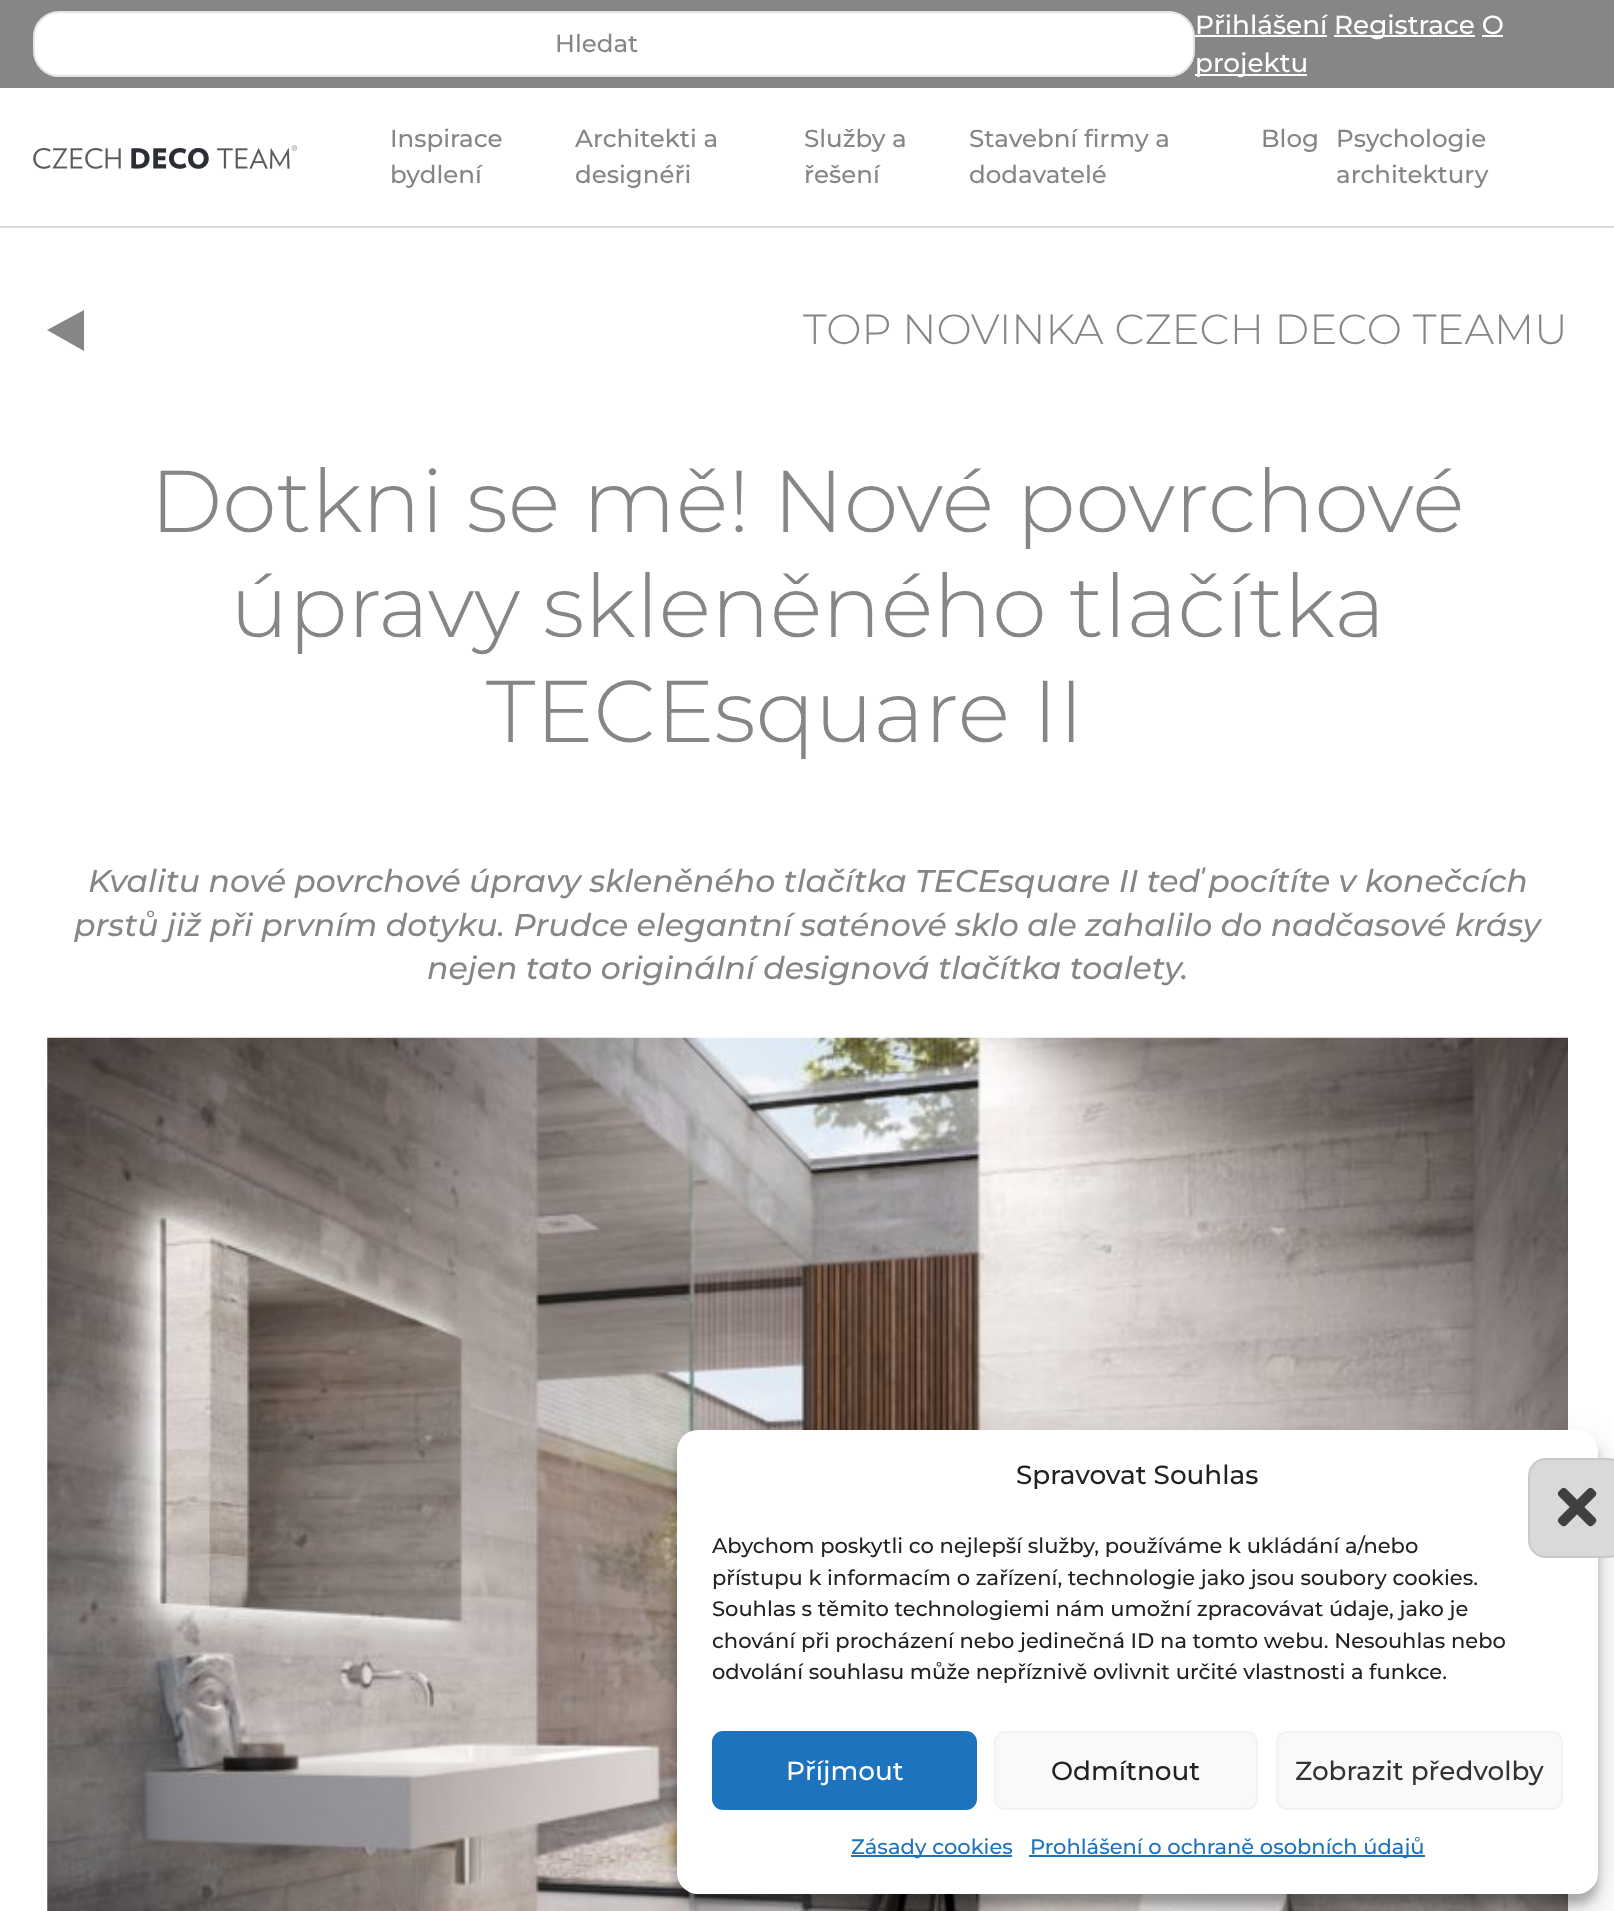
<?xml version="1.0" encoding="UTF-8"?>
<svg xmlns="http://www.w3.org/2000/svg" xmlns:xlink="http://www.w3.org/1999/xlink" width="1614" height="1911">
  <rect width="100%" height="100%" fill="#ffffff" />
  <rect width="1614" height="88" fill="#868686" />
  <rect x="34" y="12" width="1160" height="64" rx="25" fill="#ffffff" stroke="#e1e5eb" stroke-width="2" />
  <rect x="1195" y="35" width="132" height="2" fill="#ffffff" />
  <rect x="1334" y="35" width="141" height="2" fill="#ffffff" />
  <rect x="1482" y="35" width="21" height="2" fill="#ffffff" />
  <rect x="1195" y="74" width="112" height="2" fill="#ffffff" />
  <rect y="226" width="1614" height="2" fill="#d9d9d9" />
  <image x="33" y="145" width="264" height="24" xlink:href="image1.png" />
  <path d="M 47 330 l 37 -20 v 41 z" fill="#868686" />
  <image x="47" y="1037" width="1521" height="874" xlink:href="image2.png" />
  <rect x="677" y="1440" width="921" height="464" rx="21" fill="#000000" fill-opacity="0.23" filter="blur(5px)" />
  <rect x="677" y="1447" width="921" height="464" rx="21" fill="#000000" fill-opacity="0.19" filter="blur(17.5px)" />
  <rect x="677" y="1430" width="921" height="464" rx="21" fill="#ffffff" />
  <rect x="1528" y="1458" width="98" height="100" rx="18" fill="#d9d9d9" />
  <rect x="1529" y="1459" width="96" height="98" rx="17" fill="none" stroke="#404040" stroke-opacity="0.1" stroke-width="2" />
  <image x="1557" y="1487" width="40" height="40" xlink:href="image3.png" />
  <rect x="713" y="1732" width="263" height="77" rx="10" fill="#1e73be" stroke="#1e73be" stroke-width="2" />
  <rect x="995" y="1732" width="262" height="77" rx="10" fill="#f9f9f9" stroke="#f2f2f2" stroke-width="2" />
  <rect x="1277" y="1732" width="285" height="77" rx="10" fill="#f9f9f9" stroke="#f2f2f2" stroke-width="2" />
  <rect x="851" y="1855" width="161" height="2" fill="#1e73be" />
  <rect x="1029" y="1855" width="396" height="2" fill="#1e73be" />
  <text x="555" y="52" style="font-family: Montserrat; font-size: 24.5px; font-weight: 500; fill: #868686">Hledat</text>
  <text x="1195" y="34" style="font-family: Montserrat; font-size: 26.25px; font-weight: 500; fill: #ffffff">Přihlášení</text>
  <text x="1334" y="34" style="font-family: Montserrat; font-size: 26.25px; font-weight: 500; fill: #ffffff">Registrace O</text>
  <text x="1195" y="72" style="font-family: Montserrat; font-size: 26.25px; font-weight: 500; fill: #ffffff">projektu</text>
  <text x="390" y="147" style="font-family: Montserrat; font-size: 24.5px; font-weight: 500; fill: #868686">Inspirace</text>
  <text x="390" y="183" style="font-family: Montserrat; font-size: 24.5px; font-weight: 500; fill: #868686">bydlení</text>
  <text x="575" y="147" style="font-family: Montserrat; font-size: 24.5px; font-weight: 500; fill: #868686">Architekti a</text>
  <text x="575" y="183" style="font-family: Montserrat; font-size: 24.5px; font-weight: 500; fill: #868686">designéři</text>
  <text x="804" y="147" style="font-family: Montserrat; font-size: 24.5px; font-weight: 500; fill: #868686">Služby a</text>
  <text x="804" y="183" style="font-family: Montserrat; font-size: 24.5px; font-weight: 500; fill: #868686">řešení</text>
  <text x="969" y="147" style="font-family: Montserrat; font-size: 24.5px; font-weight: 500; fill: #868686">Stavební firmy a</text>
  <text x="969" y="183" style="font-family: Montserrat; font-size: 24.5px; font-weight: 500; fill: #868686">dodavatelé</text>
  <text x="1261" y="147" style="font-family: Montserrat; font-size: 24.5px; font-weight: 500; fill: #868686">Blog</text>
  <text x="1336" y="147" style="font-family: Montserrat; font-size: 24.5px; font-weight: 500; fill: #868686">Psychologie</text>
  <text x="1336" y="183" style="font-family: Montserrat; font-size: 24.5px; font-weight: 500; fill: #868686">architektury</text>
  <text x="803" y="344" style="font-family: Montserrat; font-size: 42px; font-weight: 300; fill: #868686">TOP NOVINKA CZECH DECO TEAMU</text>
  <text x="150" y="532" style="font-family: Montserrat; font-size: 87.5px; font-weight: 300; fill: #868686">Dotkni se mě! Nové povrchové</text>
  <text x="230" y="637" style="font-family: Montserrat; font-size: 87.5px; font-weight: 300; fill: #868686">úpravy skleněného tlačítka</text>
  <text x="486" y="742" style="font-family: Montserrat; font-size: 87.5px; font-weight: 300; fill: #868686">TECEsquare II</text>
  <text x="88" y="892" style="font-family: Montserrat; font-size: 31.5px; font-weight: 500; font-style: italic; fill: #868686">Kvalitu nové povrchové úpravy skleněného tlačítka TECEsquare II teď pocítíte v konečcích</text>
  <text x="74" y="936" style="font-family: Montserrat; font-size: 31.5px; font-weight: 500; font-style: italic; fill: #868686">prstů již při prvním dotyku. Prudce elegantní saténové sklo ale zahalilo do nadčasové krásy</text>
  <text x="427" y="979" style="font-family: Montserrat; font-size: 31.5px; font-weight: 500; font-style: italic; fill: #868686">nejen tato originální designová tlačítka toalety.</text>
  <text x="1016" y="1484" style="font-family: Montserrat; font-size: 26.25px; font-weight: 500; fill: #222222">Spravovat Souhlas</text>
  <text x="712" y="1553" style="font-family: Montserrat; font-size: 21px; font-weight: 500; fill: #222222">Abychom poskytli co nejlepší služby, používáme k ukládání a/nebo</text>
  <text x="712" y="1585" style="font-family: Montserrat; font-size: 21px; font-weight: 500; fill: #222222">přístupu k informacím o zařízení, technologie jako jsou soubory cookies.</text>
  <text x="712" y="1616" style="font-family: Montserrat; font-size: 21px; font-weight: 500; fill: #222222">Souhlas s těmito technologiemi nám umožní zpracovávat údaje, jako je</text>
  <text x="712" y="1648" style="font-family: Montserrat; font-size: 21px; font-weight: 500; fill: #222222">chování při procházení nebo jedinečná ID na tomto webu. Nesouhlas nebo</text>
  <text x="712" y="1679" style="font-family: Montserrat; font-size: 21px; font-weight: 500; fill: #222222">odvolání souhlasu může nepříznivě ovlivnit určité vlastnosti a funkce.</text>
  <text x="786" y="1780" style="font-family: Montserrat; font-size: 26.25px; font-weight: 500; fill: #ffffff">Příjmout</text>
  <text x="1051" y="1780" style="font-family: Montserrat; font-size: 26.25px; font-weight: 500; fill: #222222">Odmítnout</text>
  <text x="1295" y="1780" style="font-family: Montserrat; font-size: 26.25px; font-weight: 500; fill: #333333">Zobrazit předvolby</text>
  <text x="851" y="1854" style="font-family: Montserrat; font-size: 21px; font-weight: 500; fill: #1e73be">Zásady cookies</text>
  <text x="1030" y="1854" style="font-family: Montserrat; font-size: 21px; font-weight: 500; fill: #1e73be">Prohlášení o ochraně osobních údajů</text>
</svg>
